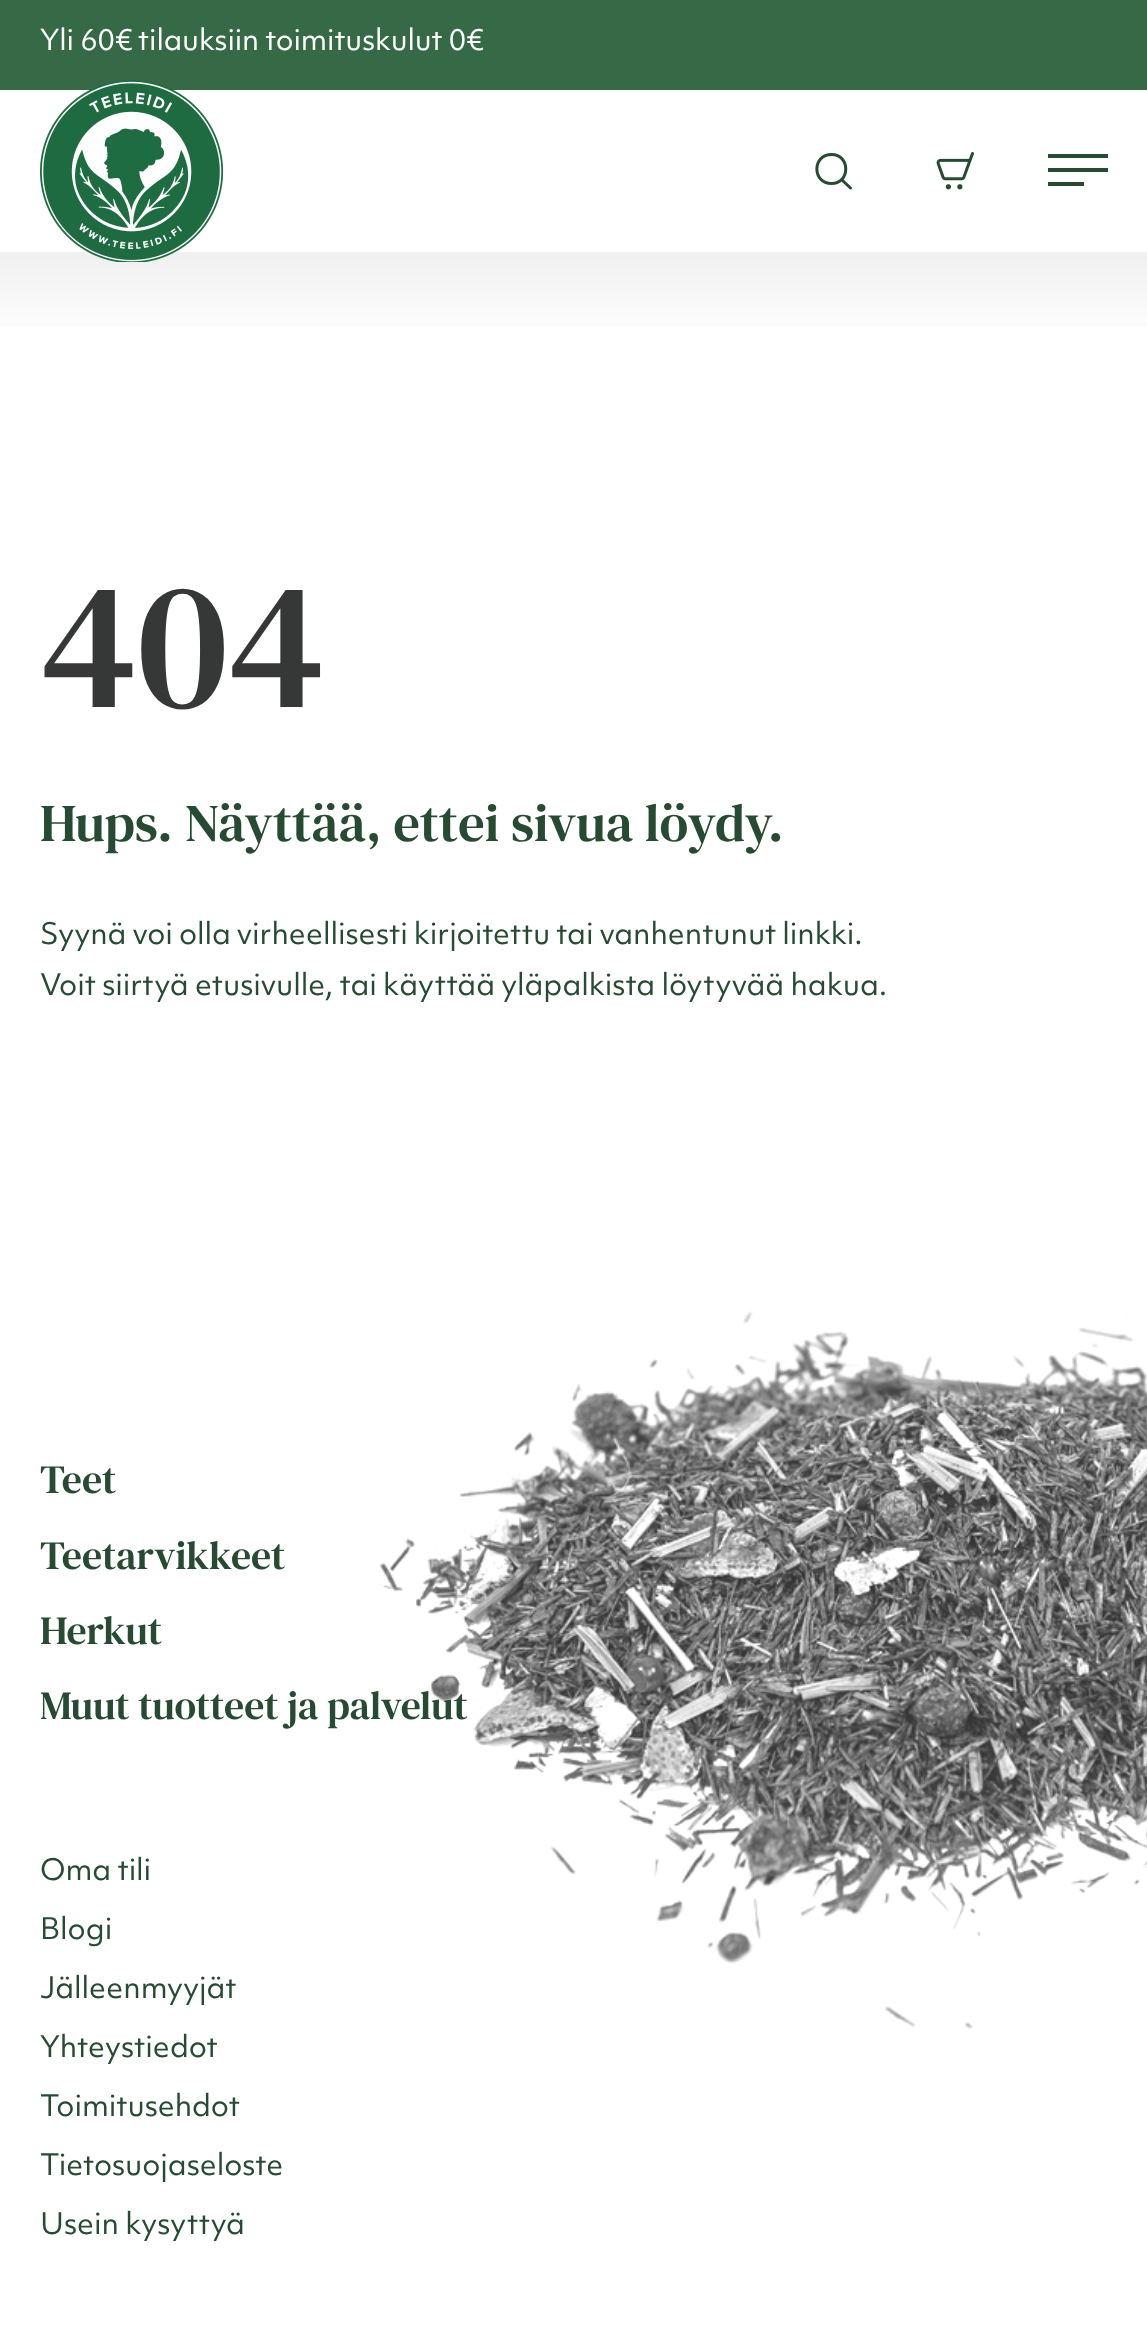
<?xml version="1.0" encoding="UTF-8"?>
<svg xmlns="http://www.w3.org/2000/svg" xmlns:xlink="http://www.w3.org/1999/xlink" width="1147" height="2328">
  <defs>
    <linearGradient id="g1" gradientUnits="userSpaceOnUse" x1="574" y1="252" x2="574" y2="342"><stop offset="0.01" stop-color="#f0f0f0" /><stop offset="1" stop-color="#ffffff" /></linearGradient>
  </defs>
  <rect width="100%" height="100%" fill="#ffffff" />
  <rect width="1147" height="90" fill="#366a46" />
  <rect y="252" width="1147" height="75" fill="url(#g1)" />
  <image x="40" y="80" width="184" height="182" xlink:href="image1.png" />
  <path d="M 831.5 183.5 c 19 0 19 -29 0 -29 c -19.5 0 -19.5 29 0 29 z m 19 4.5 l -9 -8.5" fill="none" stroke="#274b32" stroke-width="3" stroke-linecap="round" stroke-linejoin="round" />
  <image x="936" y="152" width="38" height="38" xlink:href="image2.png" />
  <rect x="1048" y="182" width="36" height="4" fill="#274b32" />
  <rect x="1048" y="154" width="60" height="4" fill="#274b32" />
  <rect x="1048" y="168" width="60" height="4" fill="#274b32" />
  <image x="379" y="1311" width="768" height="718" xlink:href="image3.png" />
  <text x="40" y="50" style="font-family: 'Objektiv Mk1'; font-size: 28px; letter-spacing: -0.1px; fill: #ffffff">Yli 60€ tilauksiin toimituskulut 0€</text>
  <text x="40" y="707" style="font-family: DM Serif Text; font-size: 182px; fill: #363837">404</text>
  <text x="40" y="841" style="font-family: DM Serif Text; font-size: 53.1px; fill: #274b32">Hups. Näyttää, ettei sivua löydy.</text>
  <text x="40" y="944" word-spacing="-0.25" style="font-family: 'Objektiv Mk1'; font-size: 28.65px; letter-spacing: -0.1px; fill: #274b32">Syynä voi olla virheellisesti kirjoitettu tai vanhentunut linkki.</text>
  <text x="40" y="995" style="font-family: 'Objektiv Mk1'; font-size: 28.65px; letter-spacing: -0.1px; fill: #274b32">Voit siirtyä etusivulle</text>
  <text x="325" y="995" style="font-family: 'Objektiv Mk1'; font-size: 28.65px; letter-spacing: -0.1px; fill: #274b32">, tai käyttää yläpalkista löytyvää hakua.</text>
  <text x="40" y="1493" style="font-family: DM Serif Text; font-size: 40px; letter-spacing: -0.1px; fill: #274b32">Teet</text>
  <text x="40" y="1569" style="font-family: DM Serif Text; font-size: 40px; letter-spacing: -0.1px; fill: #274b32">Teetarvikkeet</text>
  <text x="40" y="1644" style="font-family: DM Serif Text; font-size: 40px; letter-spacing: -0.1px; fill: #274b32">Herkut</text>
  <text x="40" y="1719" style="font-family: DM Serif Text; font-size: 40px; letter-spacing: -0.1px; fill: #274b32">Muut tuotteet ja palvelut</text>
  <text x="40" y="1880" style="font-family: 'Objektiv Mk1'; font-size: 28.65px; letter-spacing: -0.1px; fill: #274b32">Oma tili</text>
  <text x="40" y="1939" style="font-family: 'Objektiv Mk1'; font-size: 28.65px; letter-spacing: -0.1px; fill: #274b32">Blogi</text>
  <text x="40" y="1998" style="font-family: 'Objektiv Mk1'; font-size: 28.65px; letter-spacing: -0.1px; fill: #274b32">Jälleenmyyjät</text>
  <text x="40" y="2057" style="font-family: 'Objektiv Mk1'; font-size: 28.65px; letter-spacing: -0.1px; fill: #274b32">Yhteystiedot</text>
  <text x="40" y="2116" style="font-family: 'Objektiv Mk1'; font-size: 28.65px; letter-spacing: -0.1px; fill: #274b32">Toimitusehdot</text>
  <text x="40" y="2175" style="font-family: 'Objektiv Mk1'; font-size: 28.65px; letter-spacing: -0.1px; fill: #274b32">Tietosuojaseloste</text>
  <text x="40" y="2234" style="font-family: 'Objektiv Mk1'; font-size: 28.65px; letter-spacing: -0.1px; fill: #274b32">Usein kysyttyä</text>
</svg>
